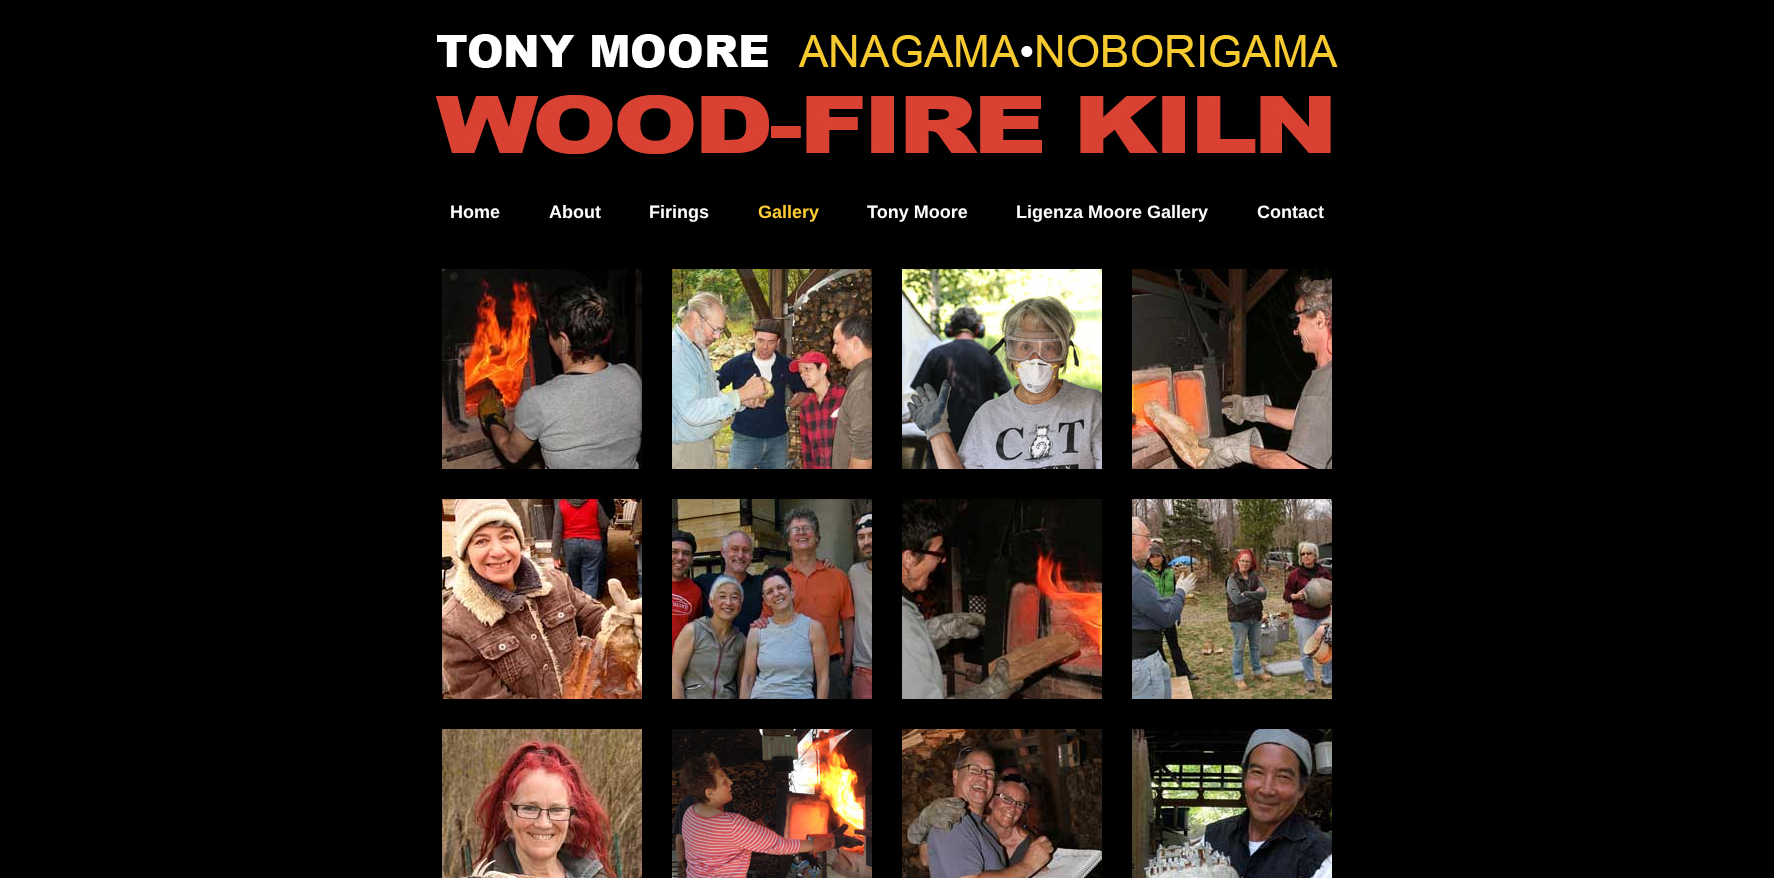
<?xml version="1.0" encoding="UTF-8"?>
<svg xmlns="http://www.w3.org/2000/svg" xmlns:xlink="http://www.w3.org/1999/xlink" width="1774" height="878">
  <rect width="100%" height="100%" fill="#000000" />
  <image x="431" y="34" width="907" height="120" xlink:href="image1.png" />
  <image x="442" y="269" width="200" height="200" xlink:href="image2.png" />
  <image x="672" y="269" width="200" height="200" xlink:href="image3.png" />
  <image x="902" y="269" width="200" height="200" xlink:href="image4.png" />
  <image x="1132" y="269" width="200" height="200" xlink:href="image5.png" />
  <image x="442" y="499" width="200" height="200" xlink:href="image6.png" />
  <image x="672" y="499" width="200" height="200" xlink:href="image7.png" />
  <image x="902" y="499" width="200" height="200" xlink:href="image8.png" />
  <image x="1132" y="499" width="200" height="200" xlink:href="image9.png" />
  <image x="442" y="729" width="200" height="149" xlink:href="image10.png" />
  <image x="672" y="729" width="200" height="149" xlink:href="image11.png" />
  <image x="902" y="729" width="200" height="149" xlink:href="image12.png" />
  <image x="1132" y="729" width="200" height="149" xlink:href="image13.png" />
  <text x="450" y="218" style="font-family: Liberation Sans; font-size: 18px; font-weight: bold; fill: #ffffff">Home</text>
  <text x="549" y="218" style="font-family: Liberation Sans; font-size: 18px; font-weight: bold; fill: #ffffff">About</text>
  <text x="649" y="218" style="font-family: Liberation Sans; font-size: 18px; font-weight: bold; fill: #ffffff">Firings</text>
  <text x="758" y="218" style="font-family: Liberation Sans; font-size: 18px; font-weight: bold; fill: #ffcc33">Gallery</text>
  <text x="867" y="218" style="font-family: Liberation Sans; font-size: 18px; font-weight: bold; fill: #ffffff">Tony Moore</text>
  <text x="1016" y="218" style="font-family: Liberation Sans; font-size: 18px; font-weight: bold; fill: #ffffff">Ligenza Moore Gallery</text>
  <text x="1257" y="218" style="font-family: Liberation Sans; font-size: 18px; font-weight: bold; fill: #ffffff">Contact</text>
</svg>
